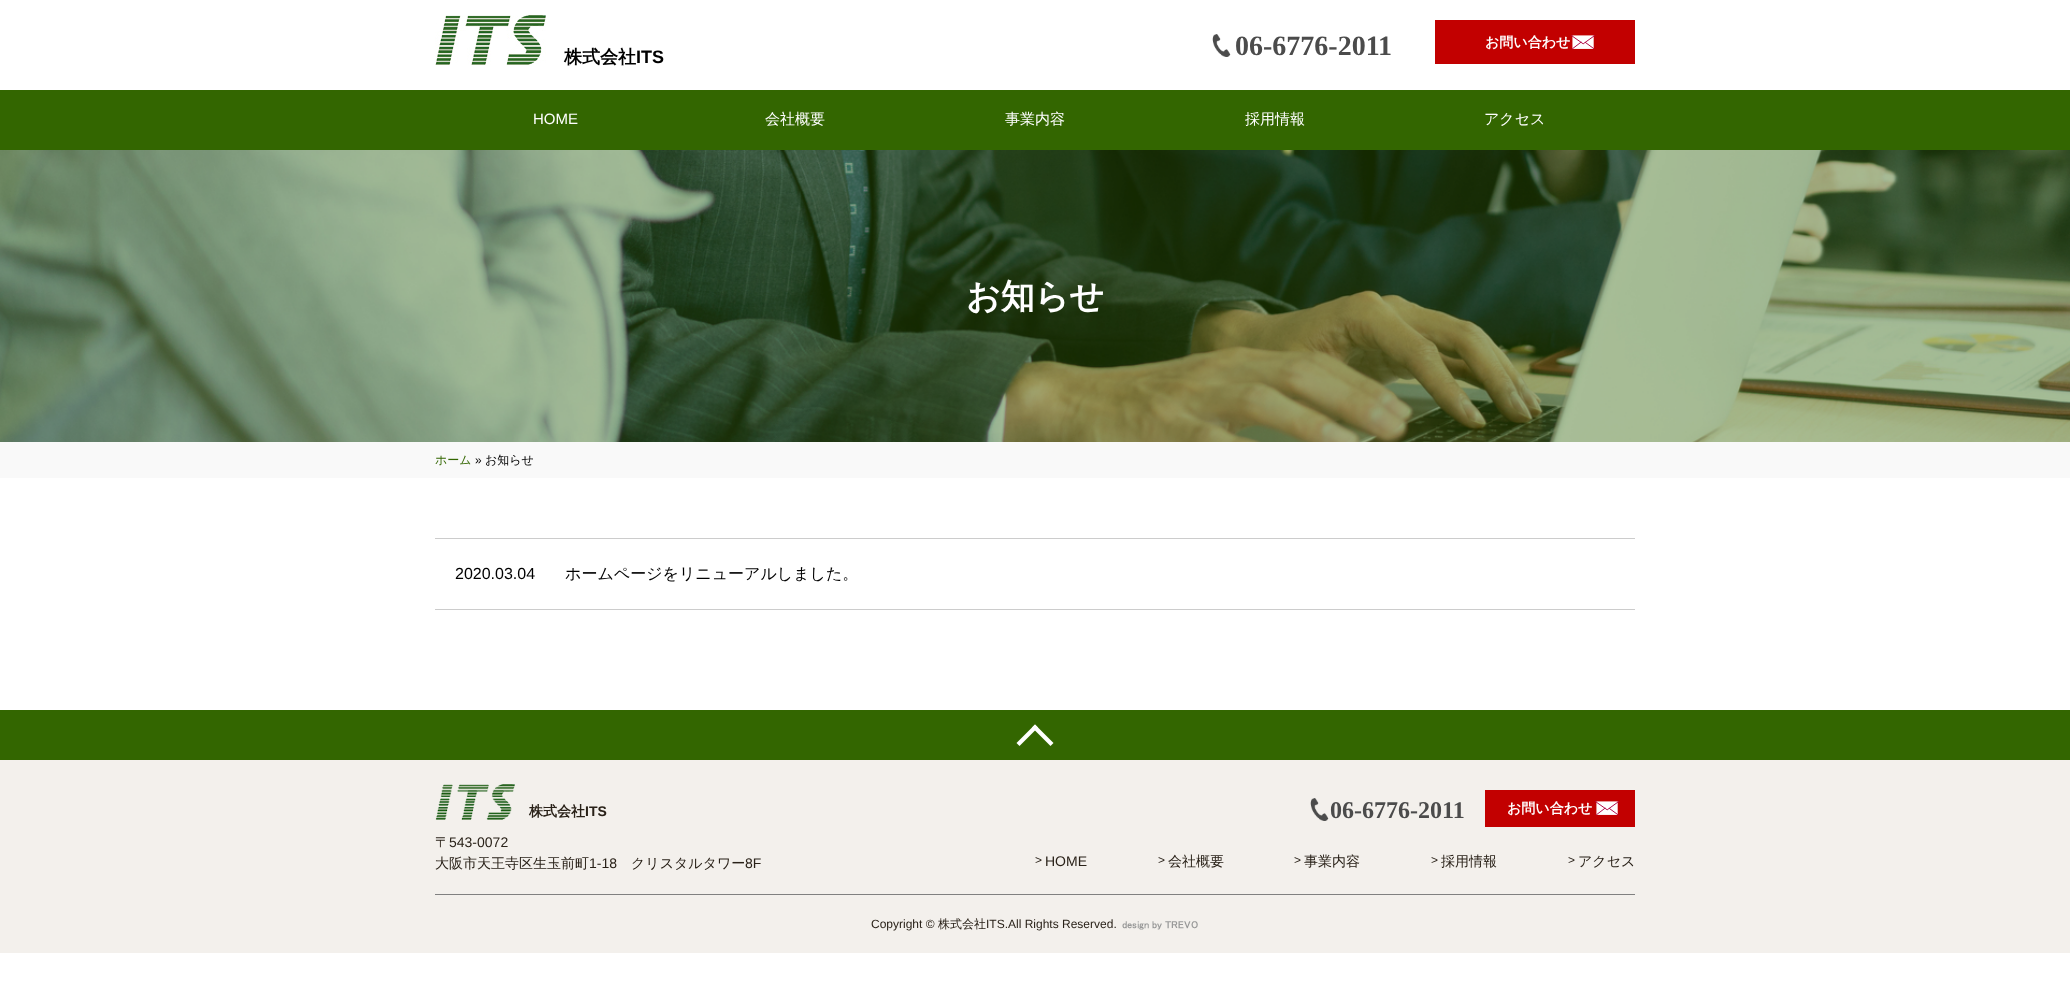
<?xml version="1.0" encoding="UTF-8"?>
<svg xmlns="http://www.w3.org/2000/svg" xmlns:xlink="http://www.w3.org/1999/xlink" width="2070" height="993">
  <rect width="100%" height="100%" fill="#ffffff" />
  <image x="435" y="15" width="111" height="50" xlink:href="image1.png" />
  <image x="1212" y="34" width="19" height="23" xlink:href="image2.png" />
  <rect x="1435" y="20" width="200" height="44" fill="#c20000" />
  <image x="1571" y="35" width="24" height="15" xlink:href="image3.png" />
  <rect y="90" width="2070" height="60" fill="#336600" />
  <image x="0" y="150" width="2070" height="292" xlink:href="image4.png" />
  <rect y="442" width="2070" height="36" fill="#f9f9f9" />
  <rect x="435" y="538" width="1200" height="1" fill="#cccccc" />
  <rect x="435" y="609" width="1200" height="1" fill="#cccccc" />
  <rect y="710" width="2070" height="50" fill="#336600" />
  <path d="M 1016.5 743 l 18.5 -18.5 l 3 3 l -18.5 18.5 z" fill="#ffffff" />
  <path d="M 1032 727.5 l 3 -3 l 18.5 18.5 l -3 3 z" fill="#ffffff" />
  <rect y="760" width="2070" height="193" fill="#f3f0ec" />
  <image x="435" y="784" width="80" height="36" xlink:href="image5.png" />
  <image x="1310" y="798" width="19" height="23" xlink:href="image6.png" />
  <rect x="1485" y="790" width="150" height="37" fill="#c20000" />
  <image x="1595" y="801" width="24" height="15" xlink:href="image3.png" />
  <rect x="435" y="894" width="1200" height="1" fill="#808080" />
  <image x="1122" y="921" width="76" height="9" xlink:href="image7.png" />
  <text x="564" y="63" style="font-family: WenQuanYi Zen Hei; font-size: 18px; font-weight: bold; fill: #000000">株式会社</text>
  <text x="636" y="63" style="font-family: Liberation Sans; font-size: 18px; font-weight: bold; fill: #000000">ITS</text>
  <text x="1235" y="55" style="font-family: Liberation Serif; font-size: 28px; font-weight: bold; fill: #4b4b4b">06-6776-2011</text>
  <text x="1485" y="47" style="font-family: WenQuanYi Zen Hei; font-size: 14px; font-weight: bold; fill: #ffffff">お問い合わせ</text>
  <text x="533" y="124" style="font-family: Liberation Sans; font-size: 15px; fill: #ffffff">HOME</text>
  <text x="765" y="124" style="font-family: WenQuanYi Zen Hei; font-size: 15px; font-weight: 500; fill: #ffffff">会社概要</text>
  <text x="1005" y="124" style="font-family: WenQuanYi Zen Hei; font-size: 15px; font-weight: 500; fill: #ffffff">事業内容</text>
  <text x="1245" y="124" style="font-family: WenQuanYi Zen Hei; font-size: 15px; font-weight: 500; fill: #ffffff">採用情報</text>
  <text x="1484" y="124" style="font-family: WenQuanYi Zen Hei; font-size: 15px; font-weight: 500; fill: #ffffff">アクセス</text>
  <text x="966" y="308" style="font-family: WenQuanYi Zen Hei; font-size: 34px; font-weight: bold; fill: #ffffff">お知らせ</text>
  <text x="435" y="464" style="font-family: WenQuanYi Zen Hei; font-size: 12px; font-weight: 500; fill: #336600">ホーム</text>
  <text x="475" y="464" style="font-family: Liberation Sans; font-size: 12px; fill: #000000">»</text>
  <text x="485" y="464" style="font-family: WenQuanYi Zen Hei; font-size: 12px; font-weight: 500; fill: #000000">お知らせ</text>
  <text x="455" y="579" style="font-family: Liberation Sans; font-size: 16px; fill: #000000">2020.03.04</text>
  <text x="565" y="579" style="font-family: WenQuanYi Zen Hei; font-size: 16px; font-weight: 500; fill: #000000">ホームページをリニューアルしました。</text>
  <text x="529" y="816" style="font-family: WenQuanYi Zen Hei; font-size: 14px; font-weight: bold; fill: #292118">株式会社</text>
  <text x="585" y="816" style="font-family: Liberation Sans; font-size: 14px; font-weight: bold; fill: #292118">ITS</text>
  <text x="435" y="847" style="font-family: WenQuanYi Zen Hei; font-size: 14px; font-weight: 500; fill: #292118">〒</text>
  <text x="449" y="847" style="font-family: Liberation Sans; font-size: 14px; fill: #292118">543-0072</text>
  <text x="435" y="868" style="font-family: WenQuanYi Zen Hei; font-size: 14px; font-weight: 500; fill: #292118">大阪市天王寺区生玉前町</text>
  <text x="589" y="868" style="font-family: Liberation Sans; font-size: 14px; fill: #292118">1-18</text>
  <text x="631" y="868" style="font-family: WenQuanYi Zen Hei; font-size: 14px; font-weight: 500; fill: #292118">クリスタルタワー</text>
  <text x="745" y="868" style="font-family: Liberation Sans; font-size: 14px; fill: #292118">8F</text>
  <text x="1330" y="818" style="font-family: Liberation Serif; font-size: 24px; font-weight: bold; fill: #4b4b4b">06-6776-2011</text>
  <text x="1507" y="813" style="font-family: WenQuanYi Zen Hei; font-size: 14px; font-weight: bold; fill: #ffffff">お問い合わせ</text>
  <text x="1035" y="864" style="font-family: Liberation Sans; font-size: 12px; fill: #292118">&gt;</text>
  <text x="1045" y="866" style="font-family: Liberation Sans; font-size: 14px; fill: #292118">HOME</text>
  <text x="1158" y="864" style="font-family: Liberation Sans; font-size: 12px; fill: #292118">&gt;</text>
  <text x="1168" y="866" style="font-family: WenQuanYi Zen Hei; font-size: 14px; font-weight: 500; fill: #292118">会社概要</text>
  <text x="1294" y="864" style="font-family: Liberation Sans; font-size: 12px; fill: #292118">&gt;</text>
  <text x="1304" y="866" style="font-family: WenQuanYi Zen Hei; font-size: 14px; font-weight: 500; fill: #292118">事業内容</text>
  <text x="1431" y="864" style="font-family: Liberation Sans; font-size: 12px; fill: #292118">&gt;</text>
  <text x="1441" y="866" style="font-family: WenQuanYi Zen Hei; font-size: 14px; font-weight: 500; fill: #292118">採用情報</text>
  <text x="1568" y="864" style="font-family: Liberation Sans; font-size: 12px; fill: #292118">&gt;</text>
  <text x="1578" y="866" style="font-family: WenQuanYi Zen Hei; font-size: 14px; font-weight: 500; fill: #292118">アクセス</text>
  <text x="871" y="928" style="font-family: Liberation Sans; font-size: 12px; fill: #292118">Copyright ©</text>
  <text x="938" y="928" style="font-family: WenQuanYi Zen Hei; font-size: 12px; font-weight: 500; fill: #292118">株式会社</text>
  <text x="986" y="928" style="font-family: Liberation Sans; font-size: 12px; fill: #292118">ITS.All Rights Reserved.</text>
</svg>
